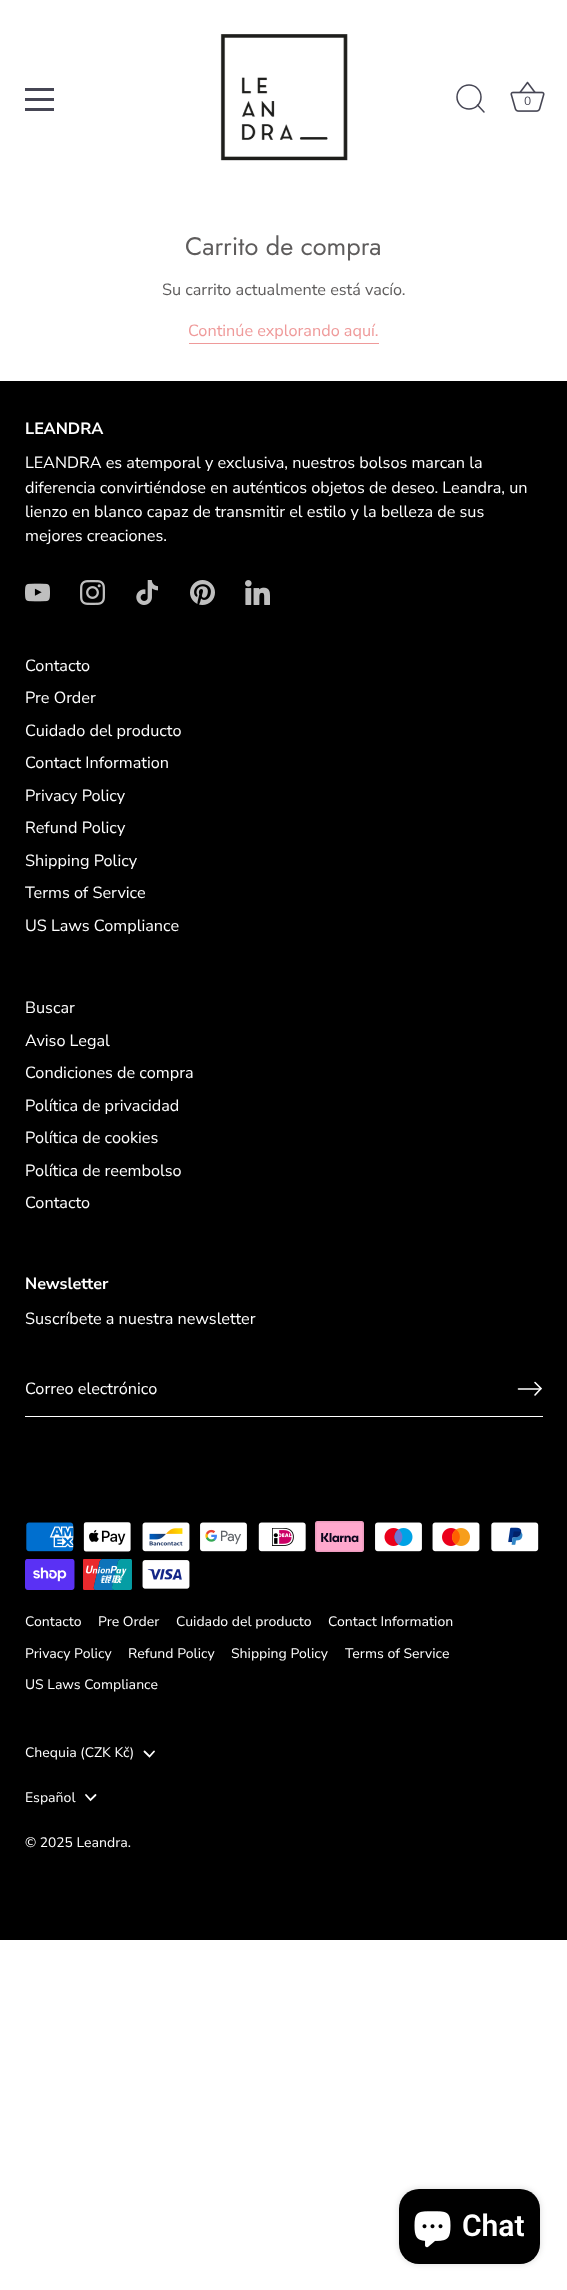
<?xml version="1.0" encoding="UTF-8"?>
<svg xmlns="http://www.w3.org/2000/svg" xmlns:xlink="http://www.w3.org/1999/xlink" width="567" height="2290">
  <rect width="100%" height="100%" fill="#ffffff" />
  <rect x="25" y="88" width="29" height="3" fill="#464654" />
  <rect x="25" y="98" width="29" height="3" fill="#464654" />
  <rect x="25" y="108" width="29" height="3" fill="#464654" />
  <image x="220" y="34" width="128" height="127" xlink:href="image1.png" />
  <circle cx="469" cy="97" r="12" fill="none" stroke="#464654" stroke-width="1.5" />
  <path d="M 484 112 l -6.5 -7" fill="none" stroke="#464654" stroke-width="1.5" stroke-linecap="round" stroke-linejoin="round" />
  <image x="510" y="81" width="35" height="31" xlink:href="image2.png" />
  <rect x="189" y="343" width="190" height="1" fill="#ef9a9a" />
  <rect y="381" width="567" height="1559" fill="#000000" />
  <image x="25" y="583" width="25" height="19" xlink:href="image3.png" />
  <image x="80" y="580" width="25" height="25" xlink:href="image4.png" />
  <image x="136" y="580" width="22" height="25" xlink:href="image5.png" />
  <image x="190" y="580" width="25" height="25" xlink:href="image6.png" />
  <image x="245" y="580" width="25" height="25" xlink:href="image7.png" />
  <rect x="25" y="1416" width="518" height="1" fill="#ffffff" />
  <path d="M 535 1395 l 6 -6.5 l -6 -6" fill="none" stroke="#ffffff" stroke-width="1.6" stroke-linecap="round" />
  <path d="M 540.5 1389 h -22" fill="none" stroke="#ffffff" stroke-width="1.6" stroke-linecap="round" stroke-linejoin="round" />
  <image x="26" y="1522" width="48" height="30" xlink:href="image8.png" />
  <image x="83" y="1522" width="48" height="30" xlink:href="image9.png" />
  <image x="142" y="1522" width="48" height="30" xlink:href="image10.png" />
  <image x="200" y="1522" width="47" height="30" xlink:href="image11.png" />
  <image x="258" y="1522" width="48" height="30" xlink:href="image12.png" />
  <image x="315" y="1521" width="49" height="31" xlink:href="image13.png" />
  <image x="375" y="1522" width="47" height="30" xlink:href="image14.png" />
  <image x="432" y="1522" width="48" height="30" xlink:href="image15.png" />
  <image x="491" y="1522" width="48" height="30" xlink:href="image16.png" />
  <image x="25" y="1559" width="50" height="31" xlink:href="image17.png" />
  <image x="83" y="1559" width="49" height="31" xlink:href="image18.png" />
  <image x="142" y="1560" width="48" height="29" xlink:href="image19.png" />
  <path d="M 144.5 1751.5 l 5 5 l 4.5 -5" fill="none" stroke="#ffffff" stroke-width="1.8" stroke-linecap="round" />
  <path d="M 86 1795 l 4.5 5 l 5 -5" fill="none" stroke="#ffffff" stroke-width="1.8" stroke-linecap="round" />
  <rect x="399" y="2189" width="141" height="75" rx="20" fill="#000000" fill-opacity="0.15" filter="blur(3px)" />
  <rect x="399" y="2189" width="141" height="75" rx="20" fill="#000000" />
  <image x="414" y="2211" width="37" height="37" xlink:href="image20.png" />
  <text x="524" y="105" style="font-family: Nunito Sans; font-size: 12px; fill: #464654">0</text>
  <text x="185" y="255" style="font-family: Jost; font-size: 25.25px; fill: #5e5c5c">Carrito de compra</text>
  <text x="162" y="295" style="font-family: Nunito Sans; font-size: 16.25px; fill: #5e5c5c">Su carrito actualmente está vacío.</text>
  <text x="188" y="336" style="font-family: Nunito Sans; font-size: 16.25px; fill: #ef9a9a">Continúe explorando aquí.</text>
  <text x="25" y="434" style="font-family: Nunito Sans; font-size: 16.25px; font-weight: bold; fill: #ffffff">LEANDRA</text>
  <text x="25" y="468" style="font-family: Nunito Sans; font-size: 16.25px; fill: #ffffff">LEANDRA es atemporal y exclusiva, nuestros bolsos marcan la</text>
  <text x="25" y="493" style="font-family: Nunito Sans; font-size: 16.25px; fill: #ffffff">diferencia convirtiéndose en auténticos objetos de deseo. Leandra, un</text>
  <text x="25" y="517" style="font-family: Nunito Sans; font-size: 16.25px; fill: #ffffff">lienzo en blanco capaz de transmitir el estilo y la belleza de sus</text>
  <text x="25" y="541" style="font-family: Nunito Sans; font-size: 16.25px; fill: #ffffff">mejores creaciones.</text>
  <text x="25" y="671" style="font-family: Nunito Sans; font-size: 16.25px; fill: #ffffff">Contacto</text>
  <text x="25" y="703" style="font-family: Nunito Sans; font-size: 16.25px; fill: #ffffff">Pre Order</text>
  <text x="25" y="736" style="font-family: Nunito Sans; font-size: 16.25px; fill: #ffffff">Cuidado del producto</text>
  <text x="25" y="768" style="font-family: Nunito Sans; font-size: 16.25px; fill: #ffffff">Contact Information</text>
  <text x="25" y="801" style="font-family: Nunito Sans; font-size: 16.25px; fill: #ffffff">Privacy Policy</text>
  <text x="25" y="833" style="font-family: Nunito Sans; font-size: 16.25px; fill: #ffffff">Refund Policy</text>
  <text x="25" y="866" style="font-family: Nunito Sans; font-size: 16.25px; fill: #ffffff">Shipping Policy</text>
  <text x="25" y="898" style="font-family: Nunito Sans; font-size: 16.25px; fill: #ffffff">Terms of Service</text>
  <text x="25" y="931" style="font-family: Nunito Sans; font-size: 16.25px; fill: #ffffff">US Laws Compliance</text>
  <text x="25" y="1013" style="font-family: Nunito Sans; font-size: 16.25px; fill: #ffffff">Buscar</text>
  <text x="25" y="1046" style="font-family: Nunito Sans; font-size: 16.25px; fill: #ffffff">Aviso Legal</text>
  <text x="25" y="1078" style="font-family: Nunito Sans; font-size: 16.25px; fill: #ffffff">Condiciones de compra</text>
  <text x="25" y="1111" style="font-family: Nunito Sans; font-size: 16.25px; fill: #ffffff">Política de privacidad</text>
  <text x="25" y="1143" style="font-family: Nunito Sans; font-size: 16.25px; fill: #ffffff">Política de cookies</text>
  <text x="25" y="1176" style="font-family: Nunito Sans; font-size: 16.25px; fill: #ffffff">Política de reembolso</text>
  <text x="25" y="1208" style="font-family: Nunito Sans; font-size: 16.25px; fill: #ffffff">Contacto</text>
  <text x="25" y="1289" style="font-family: Nunito Sans; font-size: 16.25px; font-weight: bold; fill: #ffffff">Newsletter</text>
  <text x="25" y="1324" style="font-family: Nunito Sans; font-size: 16.25px; fill: #ffffff">Suscríbete a nuestra newsletter</text>
  <text x="25" y="1394" style="font-family: Nunito Sans; font-size: 16.25px; fill: #ffffff">Correo electrónico</text>
  <text x="25" y="1626" style="font-family: 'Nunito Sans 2'; font-size: 13.75px; fill: #ffffff">Contacto</text>
  <text x="98" y="1626" style="font-family: 'Nunito Sans 2'; font-size: 13.75px; fill: #ffffff">Pre Order</text>
  <text x="176" y="1626" style="font-family: 'Nunito Sans 2'; font-size: 13.75px; fill: #ffffff">Cuidado del producto</text>
  <text x="328" y="1626" style="font-family: 'Nunito Sans 2'; font-size: 13.75px; fill: #ffffff">Contact Information</text>
  <text x="25" y="1658" style="font-family: 'Nunito Sans 2'; font-size: 13.75px; fill: #ffffff">Privacy Policy</text>
  <text x="128" y="1658" style="font-family: 'Nunito Sans 2'; font-size: 13.75px; fill: #ffffff">Refund Policy</text>
  <text x="231" y="1658" style="font-family: 'Nunito Sans 2'; font-size: 13.75px; fill: #ffffff">Shipping Policy</text>
  <text x="345" y="1658" style="font-family: 'Nunito Sans 2'; font-size: 13.75px; fill: #ffffff">Terms of Service</text>
  <text x="25" y="1689" style="font-family: 'Nunito Sans 2'; font-size: 13.75px; fill: #ffffff">US Laws Compliance</text>
  <text x="25" y="1757" style="font-family: 'Nunito Sans 2'; font-size: 13.75px; fill: #ffffff">Chequia (CZK Kč)</text>
  <text x="25" y="1802" style="font-family: 'Nunito Sans 2'; font-size: 13.75px; fill: #ffffff">Español</text>
  <text x="25" y="1847" style="font-family: 'Nunito Sans 2'; font-size: 13.75px; fill: #ffffff">© 2025 Leandra.</text>
  <text x="462" y="2236" style="font-family: Roboto; font-size: 30px; font-weight: 600; fill: #ffffff">Chat</text>
</svg>
